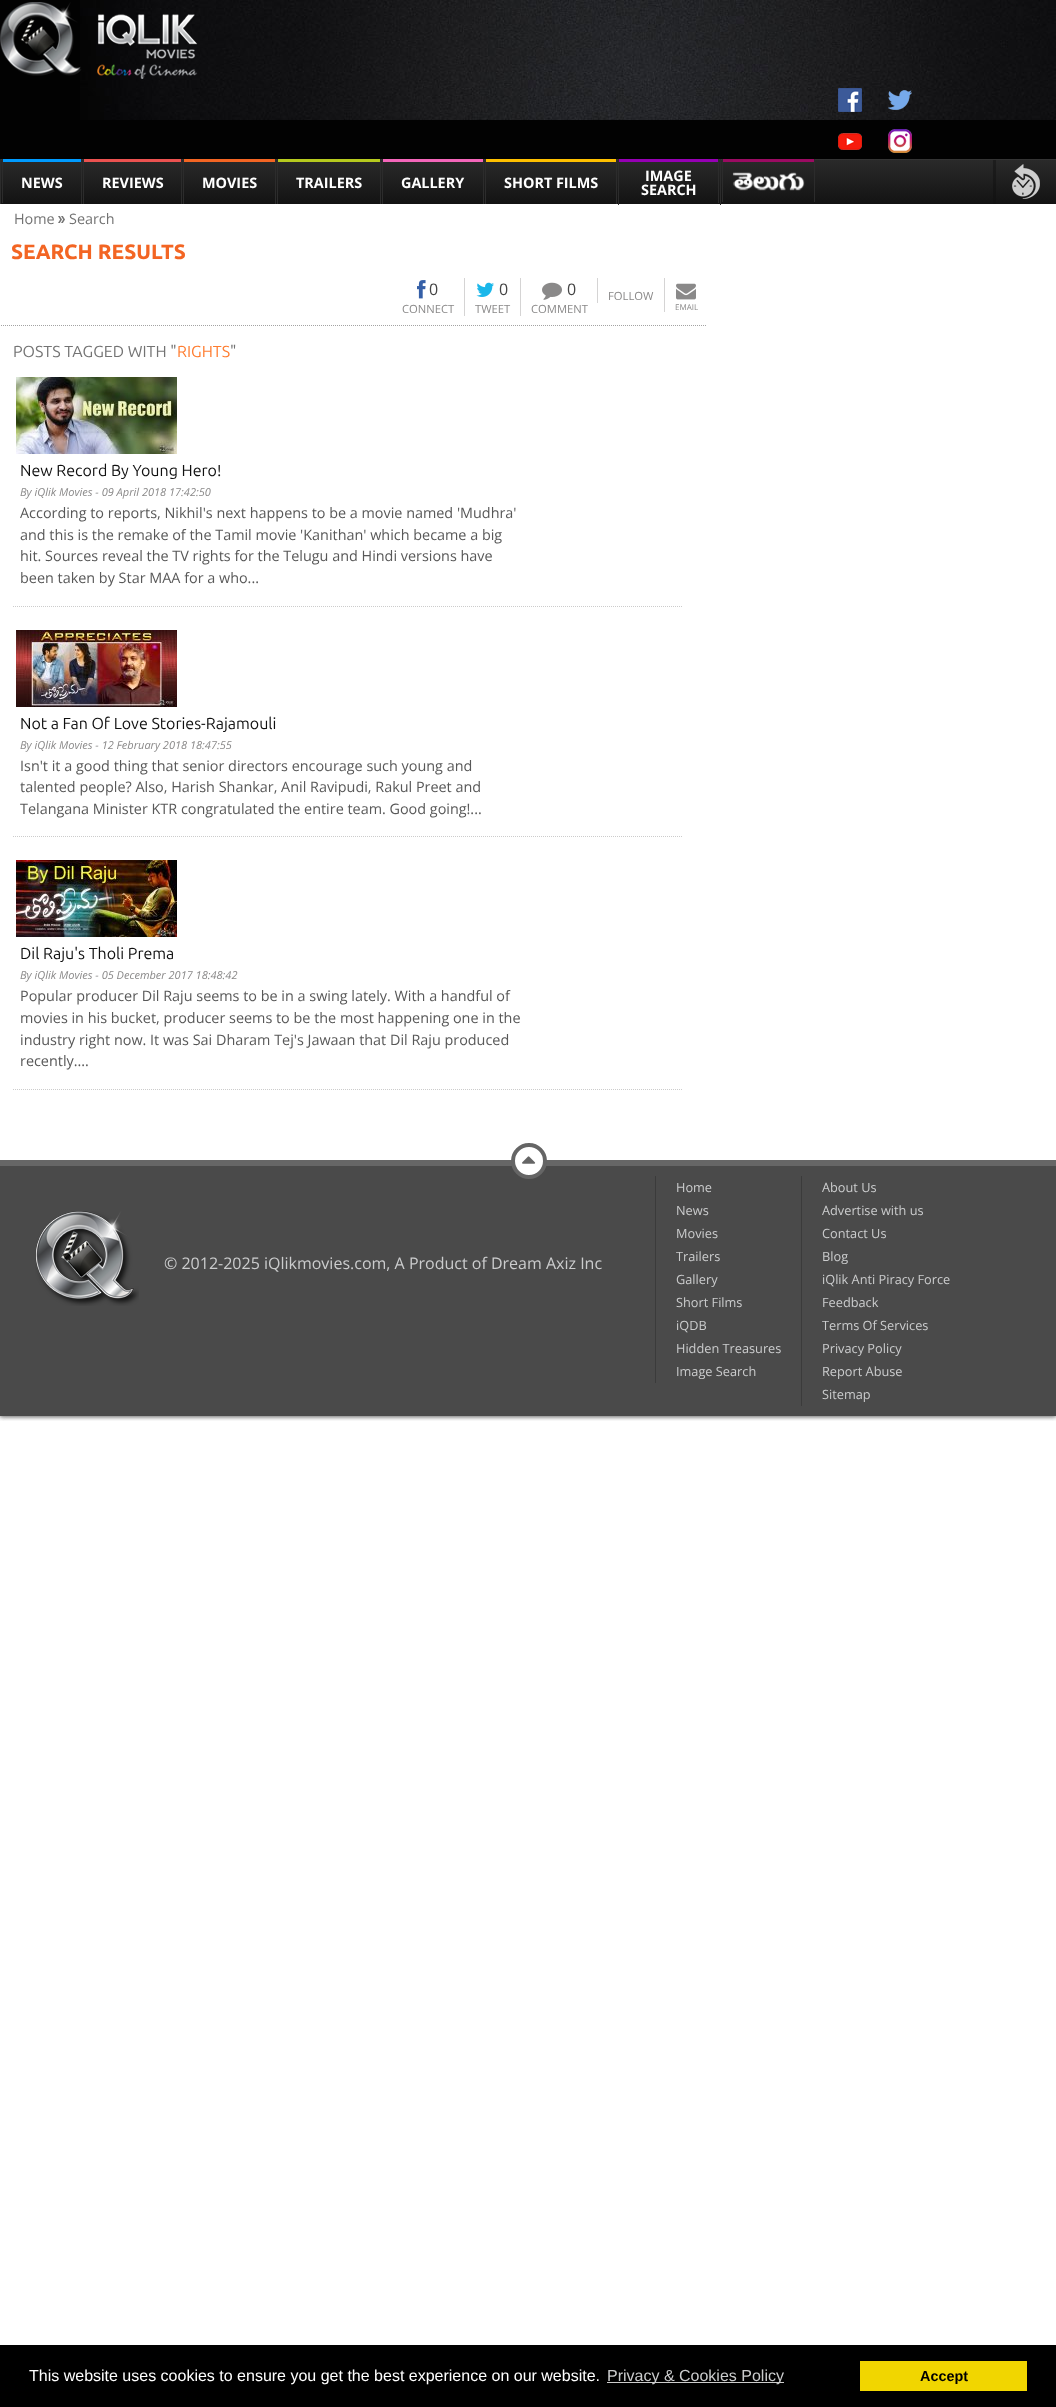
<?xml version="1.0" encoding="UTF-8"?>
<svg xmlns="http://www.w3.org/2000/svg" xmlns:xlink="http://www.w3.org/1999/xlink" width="1056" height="2407">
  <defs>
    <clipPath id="clip1"><rect x="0" y="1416" width="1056" height="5" /></clipPath>
    <linearGradient id="g1" gradientUnits="userSpaceOnUse" x1="528" y1="160" x2="528" y2="204"><stop offset="0" stop-color="#2a2a2a" /><stop offset="1" stop-color="#131313" /></linearGradient>
  </defs>
  <rect width="100%" height="100%" fill="#ffffff" />
  <rect width="1056" height="159" fill="#020202" />
  <image x="80" y="0" width="976" height="120" xlink:href="image1.png" />
  <image x="0" y="2" width="198" height="77" xlink:href="image2.png" />
  <image x="838" y="88" width="24" height="24" xlink:href="image3.png" />
  <image x="888" y="90" width="24" height="20" xlink:href="image4.png" />
  <image x="838" y="133" width="24" height="17" xlink:href="image5.png" />
  <image x="888" y="129" width="24" height="24" xlink:href="image6.png" />
  <g clip-path="url(#clip1)">
    <rect y="204" width="1056" height="1212" fill="#777777" filter="blur(2.5px)" />
    <rect y="204" width="1056" height="1212" fill="#777777" filter="blur(2.5px)" />
  </g>
  <rect x="1" y="160" width="1055" height="44" fill="url(#g1)" />
  <rect y="159" width="1056" height="1" fill="#343434" />
  <rect x="81" y="159" width="1" height="45" fill="#2c2c2c" />
  <rect y="159" width="1" height="45" fill="#2c2c2c" />
  <rect x="2" y="159" width="1" height="44" fill="#2c2c2c" />
  <rect x="3" y="159" width="78" height="3" fill="#009bff" />
  <rect x="181" y="159" width="1" height="45" fill="#2c2c2c" />
  <rect x="83" y="159" width="1" height="45" fill="#2c2c2c" />
  <rect x="84" y="159" width="97" height="3" fill="#eb5250" />
  <rect x="275" y="159" width="1" height="45" fill="#2c2c2c" />
  <rect x="183" y="159" width="1" height="45" fill="#2c2c2c" />
  <rect x="184" y="159" width="91" height="3" fill="#f36523" />
  <rect x="380" y="159" width="1" height="45" fill="#2c2c2c" />
  <rect x="277" y="159" width="1" height="45" fill="#2c2c2c" />
  <rect x="278" y="159" width="102" height="3" fill="#b6ca1e" />
  <rect x="483" y="159" width="1" height="45" fill="#2c2c2c" />
  <rect x="382" y="159" width="1" height="45" fill="#2c2c2c" />
  <rect x="383" y="159" width="100" height="3" fill="#f466ba" />
  <rect x="616" y="159" width="1" height="45" fill="#2c2c2c" />
  <rect x="485" y="159" width="1" height="45" fill="#2c2c2c" />
  <rect x="486" y="159" width="130" height="3" fill="#ffc000" />
  <rect x="720" y="159" width="1" height="46" fill="#2c2c2c" />
  <rect x="618" y="159" width="1" height="46" fill="#2c2c2c" />
  <rect x="619" y="159" width="99" height="3" fill="#9600b4" />
  <rect x="718" y="159" width="1" height="44" fill="#2c2c2c" />
  <rect x="814" y="159" width="1" height="43" fill="#2c2c2c" />
  <rect x="722" y="159" width="1" height="43" fill="#2c2c2c" />
  <rect x="723" y="159" width="91" height="3" fill="#9b0b62" />
  <image x="732" y="172" width="73" height="19" xlink:href="image7.png" />
  <rect x="993" y="160" width="3" height="44" fill="#101010" fill-opacity="0.45" />
  <image x="1012" y="164" width="28" height="35" xlink:href="image8.png" />
  <path d="M 1 325.5 h 706" fill="none" stroke="#a3a3a3" stroke-dasharray="1 1" />
  <image x="58" y="216" width="7" height="7" xlink:href="image9.png" />
  <image x="417" y="280" width="9" height="19" xlink:href="image10.png" />
  <rect x="464" y="278" width="1" height="38" fill="#d5d4d4" />
  <image x="476" y="282" width="18" height="15" xlink:href="image11.png" />
  <rect x="520" y="278" width="1" height="38" fill="#d5d4d4" />
  <image x="542" y="282" width="20" height="18" xlink:href="image12.png" />
  <rect x="597" y="278" width="1" height="25" fill="#d5d4d4" />
  <rect x="664" y="278" width="1" height="34" fill="#d5d4d4" />
  <image x="676" y="283" width="20" height="17" xlink:href="image13.png" />
  <path d="M 13 606.5 h 669" fill="none" stroke="#cccccc" stroke-dasharray="1 1" />
  <image x="16" y="377" width="161" height="77" xlink:href="image14.png" />
  <path d="M 13 836.5 h 669" fill="none" stroke="#cccccc" stroke-dasharray="1 1" />
  <image x="16" y="630" width="161" height="77" xlink:href="image15.png" />
  <path d="M 13 1089.5 h 669" fill="none" stroke="#cccccc" stroke-dasharray="1 1" />
  <image x="16" y="860" width="161" height="77" xlink:href="image16.png" />
  <rect y="1166" width="1056" height="250" fill="#4a4a4a" />
  <rect y="1160" width="1056" height="6" fill="#666666" />
  <circle cx="529" cy="1161" r="16" fill="#ffffff" stroke="#656565" stroke-width="4" />
  <image x="522" y="1156" width="14" height="8" xlink:href="image17.png" />
  <image x="35" y="1211" width="104" height="95" xlink:href="image18.png" />
  <rect x="655" y="1176" width="1" height="207" fill="#3b3b3b" />
  <rect x="801" y="1176" width="1" height="230" fill="#3b3b3b" />
  <rect y="2345" width="1056" height="62" fill="#000000" />
  <rect x="607" y="2382" width="177" height="1" fill="#cccccc" />
  <rect x="860" y="2361" width="167" height="30" fill="#f1d600" />
  <text x="21" y="188" style="font-family: Open Sans; font-size: 14.4px; font-weight: bold; fill: #ffffff">NEWS</text>
  <text x="102" y="188" style="font-family: Open Sans; font-size: 14.4px; font-weight: bold; fill: #ffffff">REVIEWS</text>
  <text x="202" y="188" style="font-family: Open Sans; font-size: 14.4px; font-weight: bold; fill: #ffffff">MOVIES</text>
  <text x="296" y="188" style="font-family: Open Sans; font-size: 14.4px; font-weight: bold; fill: #ffffff">TRAILERS</text>
  <text x="401" y="188" style="font-family: Open Sans; font-size: 14.4px; font-weight: bold; fill: #ffffff">GALLERY</text>
  <text x="504" y="188" style="font-family: Open Sans; font-size: 14.4px; font-weight: bold; fill: #ffffff">SHORT FILMS</text>
  <text x="645" y="181" style="font-family: Open Sans; font-size: 14.4px; font-weight: bold; fill: #ffffff">IMAGE</text>
  <text x="641" y="195" style="font-family: Open Sans; font-size: 14.4px; font-weight: bold; fill: #ffffff">SEARCH</text>
  <text x="14" y="224" style="font-family: Open Sans; font-size: 14.4px; fill: #737373">Home</text>
  <text x="69" y="224" style="font-family: Open Sans; font-size: 14.4px; fill: #737373">Search</text>
  <text x="11" y="259" style="font-family: Ubuntu; font-size: 20.75px; font-weight: 800; fill: #f36523">SEARCH RESULTS</text>
  <text x="429" y="295" style="font-family: Open Sans; font-size: 16px; fill: #444444">0</text>
  <text x="402" y="313" style="font-family: Open Sans; font-size: 11.25px; fill: #8a8989">CONNECT</text>
  <text x="499" y="295" style="font-family: Open Sans; font-size: 16px; fill: #444444">0</text>
  <text x="475" y="313" style="font-family: Open Sans; font-size: 11.25px; fill: #8a8989">TWEET</text>
  <text x="567" y="295" style="font-family: Open Sans; font-size: 16px; fill: #444444">0</text>
  <text x="531" y="313" style="font-family: Open Sans; font-size: 11.25px; fill: #8a8989">COMMENT</text>
  <text x="608" y="300" style="font-family: Open Sans; font-size: 11.25px; fill: #8a8989">FOLLOW</text>
  <text x="675" y="310" style="font-family: Open Sans; font-size: 8px; fill: #8a8989">EMAIL</text>
  <text x="13" y="357" style="font-family: Ubuntu; font-size: 16px; fill: #737373">POSTS TAGGED WITH "</text>
  <text x="177" y="357" style="font-family: Ubuntu; font-size: 16px; fill: #ff7c2f">RIGHTS</text>
  <text x="230" y="357" style="font-family: Ubuntu; font-size: 16px; fill: #737373">"</text>
  <text x="20" y="476" style="font-family: Ubuntu; font-size: 16px; fill: #101010">New Record By Young Hero!</text>
  <text x="20" y="496" style="font-family: Open Sans; font-size: 11px; font-style: italic; fill: #8a8989">By iQlik Movies - 09 April 2018 17:42:50</text>
  <text x="20" y="518" style="font-family: Open Sans; font-size: 14.4px; fill: #585858">According to reports, Nikhil's next happens to be a movie named 'Mudhra'</text>
  <text x="20" y="540" style="font-family: Open Sans; font-size: 14.4px; fill: #585858">and this is the remake of the Tamil movie 'Kanithan' which became a big</text>
  <text x="20" y="561" style="font-family: Open Sans; font-size: 14.4px; fill: #585858">hit. Sources reveal the TV rights for the Telugu and Hindi versions have</text>
  <text x="20" y="583" style="font-family: Open Sans; font-size: 14.4px; fill: #585858">been taken by Star MAA for a who...</text>
  <text x="20" y="729" style="font-family: Ubuntu; font-size: 16px; fill: #101010">Not a Fan Of Love Stories-Rajamouli</text>
  <text x="20" y="749" style="font-family: Open Sans; font-size: 11px; font-style: italic; fill: #8a8989">By iQlik Movies - 12 February 2018 18:47:55</text>
  <text x="20" y="771" style="font-family: Open Sans; font-size: 14.4px; fill: #585858">Isn't it a good thing that senior directors encourage such young and</text>
  <text x="20" y="792" style="font-family: Open Sans; font-size: 14.4px; fill: #585858">talented people? Also, Harish Shankar, Anil Ravipudi, Rakul Preet and</text>
  <text x="20" y="814" style="font-family: Open Sans; font-size: 14.4px; fill: #585858">Telangana Minister KTR congratulated the entire team. Good going!...</text>
  <text x="20" y="959" style="font-family: Ubuntu; font-size: 16px; fill: #101010">Dil Raju's Tholi Prema</text>
  <text x="20" y="979" style="font-family: Open Sans; font-size: 11px; font-style: italic; fill: #8a8989">By iQlik Movies - 05 December 2017 18:48:42</text>
  <text x="20" y="1001" style="font-family: Open Sans; font-size: 14.4px; fill: #585858">Popular producer Dil Raju seems to be in a swing lately. With a handful of</text>
  <text x="20" y="1023" style="font-family: Open Sans; font-size: 14.4px; fill: #585858">movies in his bucket, producer seems to be the most happening one in the</text>
  <text x="20" y="1045" style="font-family: Open Sans; font-size: 14.4px; fill: #585858">industry right now. It was Sai Dharam Tej's Jawaan that Dil Raju produced</text>
  <text x="20" y="1066" style="font-family: Open Sans; font-size: 14.4px; fill: #585858">recently....</text>
  <text x="164" y="1269" style="font-family: Open Sans; font-size: 16px; fill: #cbcccd">© 2012-2025 iQlikmovies.com, A Product of Dream Axiz Inc</text>
  <text x="676" y="1192" style="font-family: Open Sans; font-size: 12.75px; fill: #cbcccd">Home</text>
  <text x="676" y="1215" style="font-family: Open Sans; font-size: 12.75px; fill: #cbcccd">News</text>
  <text x="676" y="1238" style="font-family: Open Sans; font-size: 12.75px; fill: #cbcccd">Movies</text>
  <text x="676" y="1261" style="font-family: Open Sans; font-size: 12.75px; fill: #cbcccd">Trailers</text>
  <text x="676" y="1284" style="font-family: Open Sans; font-size: 12.75px; fill: #cbcccd">Gallery</text>
  <text x="676" y="1307" style="font-family: Open Sans; font-size: 12.75px; fill: #cbcccd">Short Films</text>
  <text x="676" y="1330" style="font-family: Open Sans; font-size: 12.75px; fill: #cbcccd">iQDB</text>
  <text x="676" y="1353" style="font-family: Open Sans; font-size: 12.75px; fill: #cbcccd">Hidden Treasures</text>
  <text x="676" y="1376" style="font-family: Open Sans; font-size: 12.75px; fill: #cbcccd">Image Search</text>
  <text x="822" y="1192" style="font-family: Open Sans; font-size: 12.75px; fill: #cbcccd">About Us</text>
  <text x="822" y="1215" style="font-family: Open Sans; font-size: 12.75px; fill: #cbcccd">Advertise with us</text>
  <text x="822" y="1238" style="font-family: Open Sans; font-size: 12.75px; fill: #cbcccd">Contact Us</text>
  <text x="822" y="1261" style="font-family: Open Sans; font-size: 12.75px; fill: #cbcccd">Blog</text>
  <text x="822" y="1284" style="font-family: Open Sans; font-size: 12.75px; fill: #cbcccd">iQlik Anti Piracy Force</text>
  <text x="822" y="1307" style="font-family: Open Sans; font-size: 12.75px; fill: #cbcccd">Feedback</text>
  <text x="822" y="1330" style="font-family: Open Sans; font-size: 12.75px; fill: #cbcccd">Terms Of Services</text>
  <text x="822" y="1353" style="font-family: Open Sans; font-size: 12.75px; fill: #cbcccd">Privacy Policy</text>
  <text x="822" y="1376" style="font-family: Open Sans; font-size: 12.75px; fill: #cbcccd">Report Abuse</text>
  <text x="822" y="1399" style="font-family: Open Sans; font-size: 12.75px; fill: #cbcccd">Sitemap</text>
  <text x="29" y="2381" style="font-family: Liberation Sans; font-size: 16px; fill: #ffffff">This website uses cookies to ensure you get the best experience on our website.</text>
  <text x="607" y="2381" style="font-family: Liberation Sans; font-size: 16px; fill: #cbcccd">Privacy &amp; Cookies Policy</text>
  <text x="920" y="2381" style="font-family: Liberation Sans; font-size: 14.4px; font-weight: bold; fill: #000000">Accept</text>
</svg>
